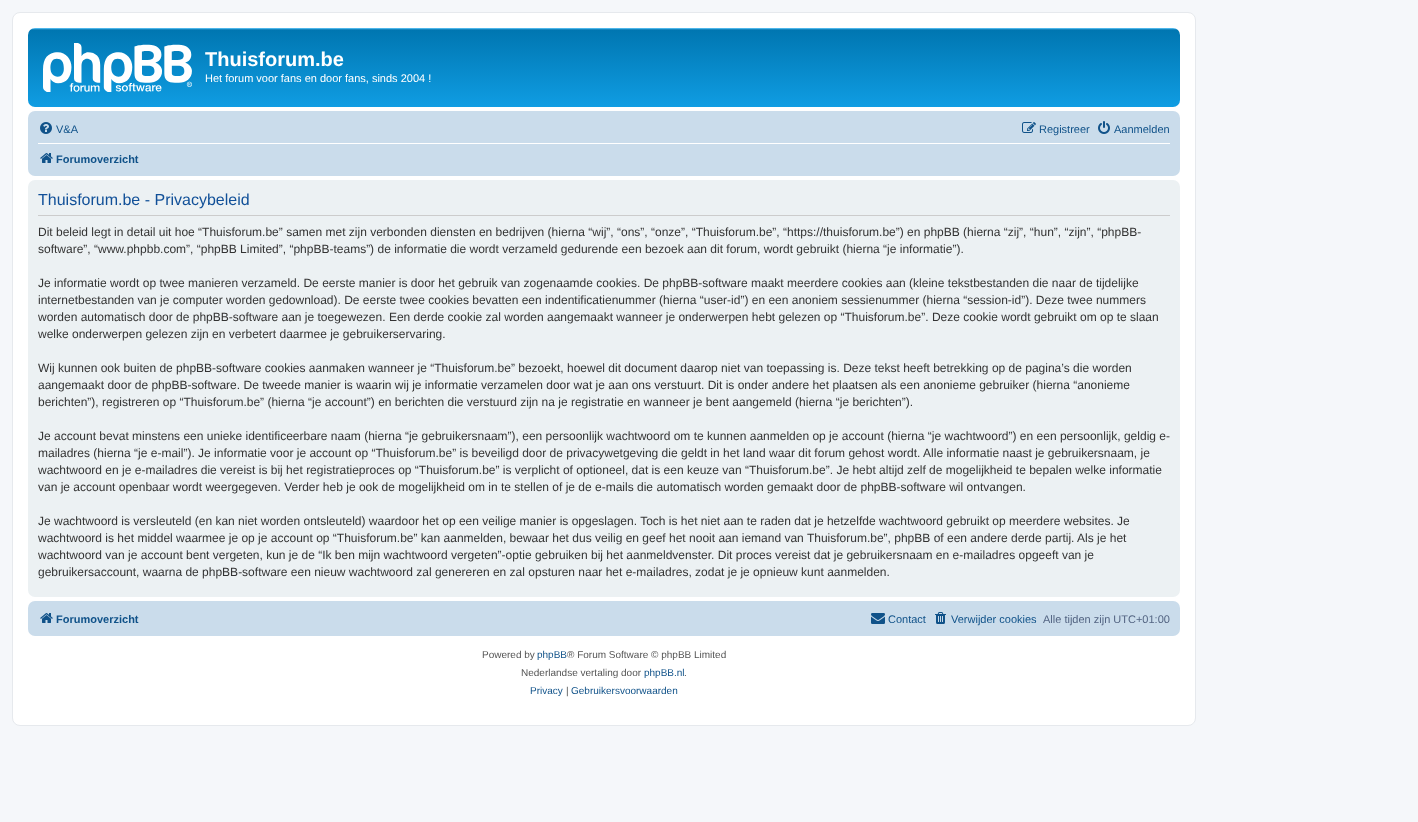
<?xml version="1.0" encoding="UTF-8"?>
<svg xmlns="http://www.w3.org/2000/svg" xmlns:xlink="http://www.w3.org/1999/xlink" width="1418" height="822">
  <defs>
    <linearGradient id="g1" gradientUnits="userSpaceOnUse" x1="604" y1="28" x2="604" y2="120"><stop offset="0" stop-color="#6aceff" /><stop offset="0.02" stop-color="#0076b1" /><stop offset="1" stop-color="#12a3eb" /></linearGradient>
  </defs>
  <rect width="100%" height="100%" fill="#f5f7fa" />
  <rect x="12.5" y="12.5" width="1183" height="713" rx="7.5" fill="#ffffff" stroke="#e6e9ed" />
  <rect x="28" y="28" width="1152" height="79" rx="7" fill="url(#g1)" />
  <image x="43" y="43" width="149" height="49" xlink:href="image1.png" />
  <rect x="28" y="111" width="1152" height="65" rx="7" fill="#cadceb" />
  <image x="40" y="122" width="12" height="12" xlink:href="image2.png" />
  <image x="1022" y="122" width="14" height="11" xlink:href="image3.png" />
  <image x="1098" y="121" width="12" height="13" xlink:href="image4.png" />
  <rect x="38" y="143" width="1132" height="1" fill="#ffffff" />
  <image x="40" y="153" width="13" height="10" xlink:href="image5.png" />
  <rect x="28" y="180" width="1152" height="417" rx="7" fill="#ecf1f3" />
  <rect x="38" y="215" width="1132" height="1" fill="#cccccc" />
  <rect x="28" y="601" width="1152" height="35" rx="7" fill="#cadceb" />
  <image x="40" y="613" width="13" height="10" xlink:href="image5.png" />
  <image x="871" y="613" width="14" height="11" xlink:href="image6.png" />
  <image x="935" y="612" width="11" height="12" xlink:href="image7.png" />
  <text x="205" y="66" style="font-family: Liberation Sans; font-size: 20px; font-weight: bold; fill: #ffffff">Thuisforum.be</text>
  <text x="205" y="82" style="font-family: Liberation Sans; font-size: 11px; fill: #ffffff">Het forum voor fans en door fans, sinds 2004 !</text>
  <text x="56" y="133" style="font-family: Liberation Sans; font-size: 11px; fill: #105289">V&amp;A</text>
  <text x="1039" y="133" style="font-family: Liberation Sans; font-size: 11px; fill: #105289">Registreer</text>
  <text x="1114" y="133" style="font-family: Liberation Sans; font-size: 11px; fill: #105289">Aanmelden</text>
  <text x="56" y="163" style="font-family: Liberation Sans; font-size: 11px; font-weight: bold; fill: #105289">Forumoverzicht</text>
  <text x="38" y="205" style="font-family: Liberation Sans; font-size: 16px; fill: #115098">Thuisforum.be - Privacybeleid</text>
  <text x="38" y="236" style="font-family: Liberation Sans; font-size: 12px; fill: #333333">Dit beleid legt in detail uit hoe “Thuisforum.be” samen met zijn verbonden diensten en bedrijven (hierna “wij”, “ons”, “onze”, “Thuisforum.be”, “https://thuisforum.be”) en phpBB (hierna “zij”, “hun”, “zijn”, “phpBB-</text>
  <text x="38" y="253" style="font-family: Liberation Sans; font-size: 12px; fill: #333333">software”, “www.phpbb.com”, “phpBB Limited”, “phpBB-teams”) de informatie die wordt verzameld gedurende een bezoek aan dit forum, wordt gebruikt (hierna “je informatie”).</text>
  <text x="38" y="287" style="font-family: Liberation Sans; font-size: 12px; fill: #333333">Je informatie wordt op twee manieren verzameld. De eerste manier is door het gebruik van zogenaamde cookies. De phpBB-software maakt meerdere cookies aan (kleine tekstbestanden die naar de tijdelijke</text>
  <text x="38" y="304" style="font-family: Liberation Sans; font-size: 12px; fill: #333333">internetbestanden van je computer worden gedownload). De eerste twee cookies bevatten een indentificatienummer (hierna “user-id”) en een anoniem sessienummer (hierna “session-id”). Deze twee nummers</text>
  <text x="38" y="321" style="font-family: Liberation Sans; font-size: 12px; fill: #333333">worden automatisch door de phpBB-software aan je toegewezen. Een derde cookie zal worden aangemaakt wanneer je onderwerpen hebt gelezen op “Thuisforum.be”. Deze cookie wordt gebruikt om op te slaan</text>
  <text x="38" y="338" style="font-family: Liberation Sans; font-size: 12px; fill: #333333">welke onderwerpen gelezen zijn en verbetert daarmee je gebruikerservaring.</text>
  <text x="38" y="372" style="font-family: Liberation Sans; font-size: 12px; fill: #333333">Wij kunnen ook buiten de phpBB-software cookies aanmaken wanneer je “Thuisforum.be” bezoekt, hoewel dit document daarop niet van toepassing is. Deze tekst heeft betrekking op de pagina’s die worden</text>
  <text x="38" y="389" style="font-family: Liberation Sans; font-size: 12px; fill: #333333">aangemaakt door de phpBB-software. De tweede manier is waarin wij je informatie verzamelen door wat je aan ons verstuurt. Dit is onder andere het plaatsen als een anonieme gebruiker (hierna “anonieme</text>
  <text x="38" y="406" style="font-family: Liberation Sans; font-size: 12px; fill: #333333">berichten”), registreren op “Thuisforum.be” (hierna “je account”) en berichten die verstuurd zijn na je registratie en wanneer je bent aangemeld (hierna “je berichten”).</text>
  <text x="38" y="440" style="font-family: Liberation Sans; font-size: 12px; fill: #333333">Je account bevat minstens een unieke identificeerbare naam (hierna “je gebruikersnaam”), een persoonlijk wachtwoord om te kunnen aanmelden op je account (hierna “je wachtwoord”) en een persoonlijk, geldig e-</text>
  <text x="38" y="457" style="font-family: Liberation Sans; font-size: 12px; fill: #333333">mailadres (hierna “je e-mail”). Je informatie voor je account op “Thuisforum.be” is beveiligd door de privacywetgeving die geldt in het land waar dit forum gehost wordt. Alle informatie naast je gebruikersnaam, je</text>
  <text x="38" y="474" style="font-family: Liberation Sans; font-size: 12px; fill: #333333">wachtwoord en je e-mailadres die vereist is bij het registratieproces op “Thuisforum.be” is verplicht of optioneel, dat is een keuze van “Thuisforum.be”. Je hebt altijd zelf de mogelijkheid te bepalen welke informatie</text>
  <text x="38" y="491" style="font-family: Liberation Sans; font-size: 12px; fill: #333333">van je account openbaar wordt weergegeven. Verder heb je ook de mogelijkheid om in te stellen of je de e-mails die automatisch worden gemaakt door de phpBB-software wil ontvangen.</text>
  <text x="38" y="525" style="font-family: Liberation Sans; font-size: 12px; fill: #333333">Je wachtwoord is versleuteld (en kan niet worden ontsleuteld) waardoor het op een veilige manier is opgeslagen. Toch is het niet aan te raden dat je hetzelfde wachtwoord gebruikt op meerdere websites. Je</text>
  <text x="38" y="542" style="font-family: Liberation Sans; font-size: 12px; fill: #333333">wachtwoord is het middel waarmee je op je account op “Thuisforum.be” kan aanmelden, bewaar het dus veilig en geef het nooit aan iemand van Thuisforum.be”, phpBB of een andere derde partij. Als je het</text>
  <text x="38" y="559" style="font-family: Liberation Sans; font-size: 12px; fill: #333333">wachtwoord van je account bent vergeten, kun je de “Ik ben mijn wachtwoord vergeten”-optie gebruiken bij het aanmeldvenster. Dit proces vereist dat je gebruikersnaam en e-mailadres opgeeft van je</text>
  <text x="38" y="576" style="font-family: Liberation Sans; font-size: 12px; fill: #333333">gebruikersaccount, waarna de phpBB-software een nieuw wachtwoord zal genereren en zal opsturen naar het e-mailadres, zodat je je opnieuw kunt aanmelden.</text>
  <text x="56" y="623" style="font-family: Liberation Sans; font-size: 11px; font-weight: bold; fill: #105289">Forumoverzicht</text>
  <text x="888" y="623" style="font-family: Liberation Sans; font-size: 11px; fill: #105289">Contact</text>
  <text x="951" y="623" style="font-family: Liberation Sans; font-size: 11px; fill: #105289">Verwijder cookies</text>
  <text x="1043" y="623" style="font-family: Liberation Sans; font-size: 11px; fill: #536482">Alle tijden zijn UTC+01:00</text>
  <text x="482" y="658" style="font-family: Liberation Sans; font-size: 10px; fill: #555555">Powered by</text>
  <text x="537" y="658" style="font-family: Liberation Sans; font-size: 10px; fill: #105289">phpBB</text>
  <text x="567" y="658" style="font-family: Liberation Sans; font-size: 10px; fill: #555555">® Forum Software © phpBB Limited</text>
  <text x="521" y="676" style="font-family: Liberation Sans; font-size: 10px; fill: #555555">Nederlandse vertaling door</text>
  <text x="644" y="676" style="font-family: Liberation Sans; font-size: 10px; fill: #105289">phpBB.nl</text>
  <text x="684" y="676" style="font-family: Liberation Sans; font-size: 10px; fill: #555555">.</text>
  <text x="530" y="694" style="font-family: Liberation Sans; font-size: 10px; fill: #105289">Privacy</text>
  <text x="566" y="694" style="font-family: Liberation Sans; font-size: 10px; fill: #555555">|</text>
  <text x="571" y="694" style="font-family: Liberation Sans; font-size: 10px; fill: #105289">Gebruikersvoorwaarden</text>
</svg>
